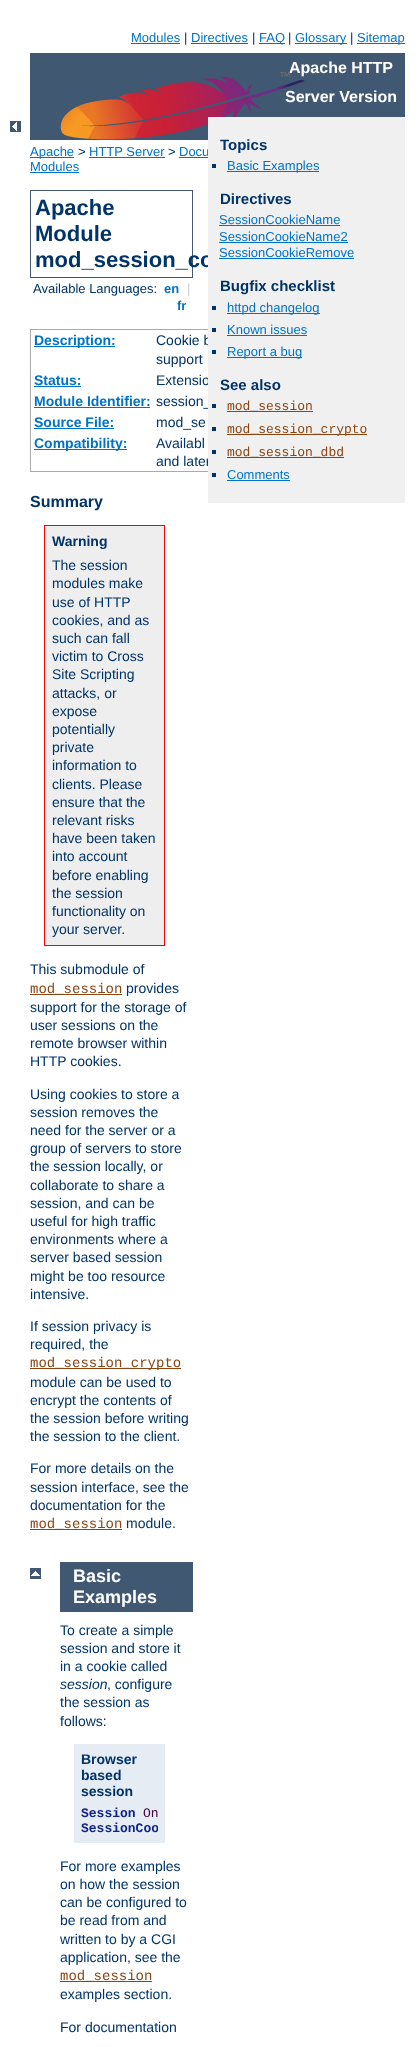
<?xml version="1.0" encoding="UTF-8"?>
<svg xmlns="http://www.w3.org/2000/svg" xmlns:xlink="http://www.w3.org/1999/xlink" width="419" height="2047">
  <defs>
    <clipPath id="clip1"><rect x="81" y="1806" width="77" height="30" /></clipPath>
  </defs>
  <rect width="100%" height="100%" fill="#ffffff" />
  <rect x="131" y="43" width="49" height="1" fill="#0073c7" />
  <rect x="191" y="43" width="57" height="1" fill="#0073c7" />
  <rect x="259" y="43" width="26" height="1" fill="#0073c7" />
  <rect x="295" y="43" width="52" height="1" fill="#0073c7" />
  <rect x="357" y="43" width="48" height="1" fill="#0073c7" />
  <rect x="30" y="53" width="375" height="87" fill="#405871" />
  <image x="10" y="121" width="11" height="11" xlink:href="image2.png" />
  <rect x="30.5" y="190.5" width="162" height="87" fill="none" stroke="#405871" />
  <rect x="30" y="329" width="178" height="1" fill="#aaaaaa" />
  <rect x="30" y="471" width="178" height="1" fill="#aaaaaa" />
  <rect x="30" y="329" width="1" height="143" fill="#aaaaaa" />
  <rect x="34" y="346" width="81" height="1" fill="#0073c7" />
  <rect x="34" y="386" width="47" height="1" fill="#0073c7" />
  <rect x="34" y="407" width="116" height="1" fill="#0073c7" />
  <rect x="34" y="428" width="80" height="1" fill="#0073c7" />
  <rect x="34" y="449" width="93" height="1" fill="#0073c7" />
  <rect x="44.5" y="525.5" width="120" height="420" fill="#eeeeee" stroke="#ff0000" />
  <rect x="30" y="994" width="92" height="1" fill="#8b4513" />
  <rect x="30" y="1368" width="151" height="1" fill="#8b4513" />
  <rect x="30" y="1529" width="92" height="1" fill="#8b4513" />
  <image x="30" y="1568" width="11" height="11" xlink:href="image3.png" />
  <rect x="60" y="1562" width="133" height="50" fill="#405871" />
  <rect x="74" y="1744" width="91" height="99" fill="#e5ecf3" />
  <rect x="60" y="1981" width="92" height="1" fill="#8b4513" />
  <rect x="30" y="157" width="44" height="1" fill="#0073c7" />
  <rect x="89" y="157" width="76" height="1" fill="#0073c7" />
  <rect x="179" y="157" width="29" height="1" fill="#0073c7" />
  <rect x="30" y="172" width="49" height="1" fill="#0073c7" />
  <text x="131" y="42" style="font-family: Liberation Sans; font-size: 13px; fill: #0073c7">Modules</text>
  <text x="184" y="42" style="font-family: Liberation Sans; font-size: 13px; fill: #003366">|</text>
  <text x="191" y="42" style="font-family: Liberation Sans; font-size: 13px; fill: #0073c7">Directives</text>
  <text x="252" y="42" style="font-family: Liberation Sans; font-size: 13px; fill: #003366">|</text>
  <text x="259" y="42" style="font-family: Liberation Sans; font-size: 13px; fill: #0073c7">FAQ</text>
  <text x="288" y="42" style="font-family: Liberation Sans; font-size: 13px; fill: #003366">|</text>
  <text x="295" y="42" style="font-family: Liberation Sans; font-size: 13px; fill: #0073c7">Glossary</text>
  <text x="350" y="42" style="font-family: Liberation Sans; font-size: 13px; fill: #003366">|</text>
  <text x="357" y="42" style="font-family: Liberation Sans; font-size: 13px; fill: #0073c7">Sitemap</text>
  <text x="289" y="73" style="font-family: Liberation Sans; font-size: 16px; font-weight: bold; fill: #ffffff">Apache HTTP</text>
  <text x="285" y="102" style="font-family: Liberation Sans; font-size: 16px; font-weight: bold; fill: #ffffff">Server Version</text>
  <image x="60" y="72" width="245" height="68" xlink:href="image1.png" />
  <text x="35" y="215" style="font-family: Liberation Sans; font-size: 22px; font-weight: bold; fill: #003366">Apache</text>
  <text x="35" y="241" style="font-family: Liberation Sans; font-size: 22px; font-weight: bold; fill: #003366">Module</text>
  <text x="35" y="267" style="font-family: Liberation Sans; font-size: 22px; font-weight: bold; fill: #003366">mod_session_co</text>
  <text x="33" y="293" style="font-family: Liberation Sans; font-size: 13px; fill: #003366">Available Languages:</text>
  <text x="164" y="293" style="font-family: Liberation Sans; font-size: 13px; font-weight: bold; fill: #0073c7">en</text>
  <text x="187" y="293" style="font-family: Liberation Sans; font-size: 13px; fill: #cccccc">|</text>
  <text x="177" y="310" style="font-family: Liberation Sans; font-size: 13px; font-weight: bold; fill: #0073c7">fr</text>
  <text x="34" y="345" style="font-family: Liberation Sans; font-size: 14px; font-weight: bold; fill: #0073c7">Description:</text>
  <text x="156" y="345" style="font-family: Liberation Sans; font-size: 14px; fill: #003366">Cookie b</text>
  <text x="156" y="364" style="font-family: Liberation Sans; font-size: 14px; fill: #003366">support</text>
  <text x="34" y="385" style="font-family: Liberation Sans; font-size: 14px; font-weight: bold; fill: #0073c7">Status:</text>
  <text x="156" y="385" style="font-family: Liberation Sans; font-size: 14px; fill: #003366">Extensio</text>
  <text x="34" y="406" style="font-family: Liberation Sans; font-size: 14px; font-weight: bold; fill: #0073c7">Module Identifier:</text>
  <text x="156" y="406" style="font-family: Liberation Sans; font-size: 14px; fill: #003366">session_</text>
  <text x="34" y="427" style="font-family: Liberation Sans; font-size: 14px; font-weight: bold; fill: #0073c7">Source File:</text>
  <text x="156" y="427" style="font-family: Liberation Sans; font-size: 14px; fill: #003366">mod_se</text>
  <text x="34" y="448" style="font-family: Liberation Sans; font-size: 14px; font-weight: bold; fill: #0073c7">Compatibility:</text>
  <text x="156" y="448" style="font-family: Liberation Sans; font-size: 14px; fill: #003366">Availabl</text>
  <text x="156" y="466" style="font-family: Liberation Sans; font-size: 14px; fill: #003366">and later</text>
  <text x="30" y="507" style="font-family: Liberation Sans; font-size: 16px; font-weight: bold; fill: #003366">Summary</text>
  <text x="52" y="546" style="font-family: Liberation Sans; font-size: 14px; font-weight: bold; fill: #003366">Warning</text>
  <text x="52" y="570" style="font-family: Liberation Sans; font-size: 14px; fill: #003366">The session</text>
  <text x="52" y="588" style="font-family: Liberation Sans; font-size: 14px; fill: #003366">modules make</text>
  <text x="52" y="607" style="font-family: Liberation Sans; font-size: 14px; fill: #003366">use of HTTP</text>
  <text x="52" y="625" style="font-family: Liberation Sans; font-size: 14px; fill: #003366">cookies, and as</text>
  <text x="52" y="643" style="font-family: Liberation Sans; font-size: 14px; fill: #003366">such can fall</text>
  <text x="52" y="661" style="font-family: Liberation Sans; font-size: 14px; fill: #003366">victim to Cross</text>
  <text x="52" y="679" style="font-family: Liberation Sans; font-size: 14px; fill: #003366">Site Scripting</text>
  <text x="52" y="698" style="font-family: Liberation Sans; font-size: 14px; fill: #003366">attacks, or</text>
  <text x="52" y="716" style="font-family: Liberation Sans; font-size: 14px; fill: #003366">expose</text>
  <text x="52" y="734" style="font-family: Liberation Sans; font-size: 14px; fill: #003366">potentially</text>
  <text x="52" y="752" style="font-family: Liberation Sans; font-size: 14px; fill: #003366">private</text>
  <text x="52" y="770" style="font-family: Liberation Sans; font-size: 14px; fill: #003366">information to</text>
  <text x="52" y="789" style="font-family: Liberation Sans; font-size: 14px; fill: #003366">clients. Please</text>
  <text x="52" y="807" style="font-family: Liberation Sans; font-size: 14px; fill: #003366">ensure that the</text>
  <text x="52" y="825" style="font-family: Liberation Sans; font-size: 14px; fill: #003366">relevant risks</text>
  <text x="52" y="843" style="font-family: Liberation Sans; font-size: 14px; fill: #003366">have been taken</text>
  <text x="52" y="861" style="font-family: Liberation Sans; font-size: 14px; fill: #003366">into account</text>
  <text x="52" y="880" style="font-family: Liberation Sans; font-size: 14px; fill: #003366">before enabling</text>
  <text x="52" y="898" style="font-family: Liberation Sans; font-size: 14px; fill: #003366">the session</text>
  <text x="52" y="916" style="font-family: Liberation Sans; font-size: 14px; fill: #003366">functionality on</text>
  <text x="52" y="934" style="font-family: Liberation Sans; font-size: 14px; fill: #003366">your server.</text>
  <text x="30" y="974" style="font-family: Liberation Sans; font-size: 14px; fill: #003366">This submodule of</text>
  <text x="30" y="993" style="font-family: Liberation Mono; font-size: 14px; fill: #8b4513">mod_session</text>
  <text x="126" y="993" style="font-family: Liberation Sans; font-size: 14px; fill: #003366">provides</text>
  <text x="30" y="1012" style="font-family: Liberation Sans; font-size: 14px; fill: #003366">support for the storage of</text>
  <text x="30" y="1030" style="font-family: Liberation Sans; font-size: 14px; fill: #003366">user sessions on the</text>
  <text x="30" y="1048" style="font-family: Liberation Sans; font-size: 14px; fill: #003366">remote browser within</text>
  <text x="30" y="1066" style="font-family: Liberation Sans; font-size: 14px; fill: #003366">HTTP cookies.</text>
  <text x="30" y="1099" style="font-family: Liberation Sans; font-size: 14px; fill: #003366">Using cookies to store a</text>
  <text x="30" y="1117" style="font-family: Liberation Sans; font-size: 14px; fill: #003366">session removes the</text>
  <text x="30" y="1135" style="font-family: Liberation Sans; font-size: 14px; fill: #003366">need for the server or a</text>
  <text x="30" y="1153" style="font-family: Liberation Sans; font-size: 14px; fill: #003366">group of servers to store</text>
  <text x="30" y="1171" style="font-family: Liberation Sans; font-size: 14px; fill: #003366">the session locally, or</text>
  <text x="30" y="1190" style="font-family: Liberation Sans; font-size: 14px; fill: #003366">collaborate to share a</text>
  <text x="30" y="1208" style="font-family: Liberation Sans; font-size: 14px; fill: #003366">session, and can be</text>
  <text x="30" y="1226" style="font-family: Liberation Sans; font-size: 14px; fill: #003366">useful for high traffic</text>
  <text x="30" y="1244" style="font-family: Liberation Sans; font-size: 14px; fill: #003366">environments where a</text>
  <text x="30" y="1262" style="font-family: Liberation Sans; font-size: 14px; fill: #003366">server based session</text>
  <text x="30" y="1281" style="font-family: Liberation Sans; font-size: 14px; fill: #003366">might be too resource</text>
  <text x="30" y="1299" style="font-family: Liberation Sans; font-size: 14px; fill: #003366">intensive.</text>
  <text x="30" y="1331" style="font-family: Liberation Sans; font-size: 14px; fill: #003366">If session privacy is</text>
  <text x="30" y="1349" style="font-family: Liberation Sans; font-size: 14px; fill: #003366">required, the</text>
  <text x="30" y="1367" style="font-family: Liberation Mono; font-size: 14px; fill: #8b4513">mod_session_crypto</text>
  <text x="30" y="1387" style="font-family: Liberation Sans; font-size: 14px; fill: #003366">module can be used to</text>
  <text x="30" y="1405" style="font-family: Liberation Sans; font-size: 14px; fill: #003366">encrypt the contents of</text>
  <text x="30" y="1423" style="font-family: Liberation Sans; font-size: 14px; fill: #003366">the session before writing</text>
  <text x="30" y="1441" style="font-family: Liberation Sans; font-size: 14px; fill: #003366">the session to the client.</text>
  <text x="30" y="1473" style="font-family: Liberation Sans; font-size: 14px; fill: #003366">For more details on the</text>
  <text x="30" y="1492" style="font-family: Liberation Sans; font-size: 14px; fill: #003366">session interface, see the</text>
  <text x="30" y="1510" style="font-family: Liberation Sans; font-size: 14px; fill: #003366">documentation for the</text>
  <text x="30" y="1528" style="font-family: Liberation Mono; font-size: 14px; fill: #8b4513">mod_session</text>
  <text x="126" y="1528" style="font-family: Liberation Sans; font-size: 14px; fill: #003366">module.</text>
  <text x="73" y="1582" style="font-family: Liberation Sans; font-size: 18px; font-weight: bold; fill: #ffffff">Basic</text>
  <text x="73" y="1603" style="font-family: Liberation Sans; font-size: 18px; font-weight: bold; fill: #ffffff">Examples</text>
  <text x="60" y="1635" style="font-family: Liberation Sans; font-size: 14px; fill: #003366">To create a simple</text>
  <text x="60" y="1653" style="font-family: Liberation Sans; font-size: 14px; fill: #003366">session and store it</text>
  <text x="60" y="1671" style="font-family: Liberation Sans; font-size: 14px; fill: #003366">in a cookie called</text>
  <text x="60" y="1689" style="font-family: Liberation Sans; font-size: 14px; font-style: italic; fill: #003366">session</text>
  <text x="107" y="1689" style="font-family: Liberation Sans; font-size: 14px; fill: #003366">, configure</text>
  <text x="60" y="1707" style="font-family: Liberation Sans; font-size: 14px; fill: #003366">the session as</text>
  <text x="60" y="1726" style="font-family: Liberation Sans; font-size: 14px; fill: #003366">follows:</text>
  <text x="81" y="1764" style="font-family: Liberation Sans; font-size: 14px; font-weight: bold; fill: #003366">Browser</text>
  <text x="81" y="1780" style="font-family: Liberation Sans; font-size: 14px; font-weight: bold; fill: #003366">based</text>
  <text x="81" y="1796" style="font-family: Liberation Sans; font-size: 14px; font-weight: bold; fill: #003366">session</text>
  <text x="81" y="1817" style="font-family: Liberation Mono; font-size: 13px; font-weight: bold; fill: #112288">Session</text>
  <text x="143" y="1817" style="font-family: Liberation Mono; font-size: 13px; fill: #440044">On</text>
  <g clip-path="url(#clip1)">
    <text x="81" y="1832" style="font-family: Liberation Mono; font-size: 13px; font-weight: bold; fill: #112288">SessionCoo</text>
  </g>
  <text x="60" y="1871" style="font-family: Liberation Sans; font-size: 14px; fill: #003366">For more examples</text>
  <text x="60" y="1889" style="font-family: Liberation Sans; font-size: 14px; fill: #003366">on how the session</text>
  <text x="60" y="1907" style="font-family: Liberation Sans; font-size: 14px; fill: #003366">can be configured to</text>
  <text x="60" y="1925" style="font-family: Liberation Sans; font-size: 14px; fill: #003366">be read from and</text>
  <text x="60" y="1944" style="font-family: Liberation Sans; font-size: 14px; fill: #003366">written to by a CGI</text>
  <text x="60" y="1962" style="font-family: Liberation Sans; font-size: 14px; fill: #003366">application, see the</text>
  <text x="60" y="1980" style="font-family: Liberation Mono; font-size: 14px; fill: #8b4513">mod_session</text>
  <text x="60" y="1999" style="font-family: Liberation Sans; font-size: 14px; fill: #003366">examples section.</text>
  <text x="60" y="2032" style="font-family: Liberation Sans; font-size: 14px; fill: #003366">For documentation</text>
  <text x="30" y="156" style="font-family: Liberation Sans; font-size: 13px; fill: #0073c7">Apache</text>
  <text x="78" y="156" style="font-family: Liberation Sans; font-size: 13px; fill: #003366">&gt;</text>
  <text x="89" y="156" style="font-family: Liberation Sans; font-size: 13px; fill: #0073c7">HTTP Server</text>
  <text x="168" y="156" style="font-family: Liberation Sans; font-size: 13px; fill: #003366">&gt;</text>
  <text x="179" y="156" style="font-family: Liberation Sans; font-size: 13px; fill: #0073c7">Docu</text>
  <rect x="208" y="117" width="197" height="386" fill="#f0f0f0" />
  <text x="227" y="479" style="font-family: Liberation Sans; font-size: 13px; fill: #0073c7">Comments</text>
  <rect x="227" y="480" width="63" height="1" fill="#0073c7" />
  <rect x="212" y="473" width="4" height="4" fill="#003366" />
  <rect x="227" y="457" width="117" height="1" fill="#8b4513" />
  <text x="227" y="456" style="font-family: Liberation Mono; font-size: 13px; fill: #8b4513">mod_session_dbd</text>
  <rect x="212" y="450" width="4" height="4" fill="#003366" />
  <rect x="227" y="434" width="140" height="1" fill="#8b4513" />
  <text x="227" y="433" style="font-family: Liberation Mono; font-size: 13px; fill: #8b4513">mod_session_crypto</text>
  <rect x="212" y="427" width="4" height="4" fill="#003366" />
  <rect x="227" y="411" width="86" height="1" fill="#8b4513" />
  <text x="227" y="410" style="font-family: Liberation Mono; font-size: 13px; fill: #8b4513">mod_session</text>
  <rect x="212" y="404" width="4" height="4" fill="#003366" />
  <text x="220" y="390" style="font-family: Liberation Sans; font-size: 15px; font-weight: bold; fill: #003366">See also</text>
  <rect x="227" y="357" width="75" height="1" fill="#0073c7" />
  <text x="227" y="356" style="font-family: Liberation Sans; font-size: 13px; fill: #0073c7">Report a bug</text>
  <rect x="212" y="350" width="4" height="4" fill="#003366" />
  <text x="227" y="334" style="font-family: Liberation Sans; font-size: 13px; fill: #0073c7">Known issues</text>
  <rect x="227" y="335" width="80" height="1" fill="#0073c7" />
  <rect x="212" y="328" width="4" height="4" fill="#003366" />
  <rect x="227" y="313" width="93" height="1" fill="#0073c7" />
  <text x="227" y="312" style="font-family: Liberation Sans; font-size: 13px; fill: #0073c7">httpd changelog</text>
  <rect x="212" y="306" width="4" height="4" fill="#003366" />
  <text x="220" y="291" style="font-family: Liberation Sans; font-size: 15px; font-weight: bold; fill: #003366">Bugfix checklist</text>
  <text x="219" y="257" style="font-family: Liberation Sans; font-size: 13px; fill: #0073c7">SessionCookieRemove</text>
  <rect x="219" y="258" width="135" height="1" fill="#0073c7" />
  <text x="219" y="241" style="font-family: Liberation Sans; font-size: 13px; fill: #0073c7">SessionCookieName2</text>
  <rect x="219" y="242" width="129" height="1" fill="#0073c7" />
  <text x="219" y="224" style="font-family: Liberation Sans; font-size: 13px; fill: #0073c7">SessionCookieName</text>
  <rect x="219" y="225" width="121" height="1" fill="#0073c7" />
  <text x="220" y="204" style="font-family: Liberation Sans; font-size: 15px; font-weight: bold; fill: #003366">Directives</text>
  <rect x="227" y="171" width="92" height="1" fill="#0073c7" />
  <text x="227" y="170" style="font-family: Liberation Sans; font-size: 13px; fill: #0073c7">Basic Examples</text>
  <rect x="212" y="164" width="4" height="4" fill="#003366" />
  <text x="220" y="150" style="font-family: Liberation Sans; font-size: 15px; font-weight: bold; fill: #003366">Topics</text>
  <text x="30" y="171" style="font-family: Liberation Sans; font-size: 13px; fill: #0073c7">Modules</text>
</svg>
